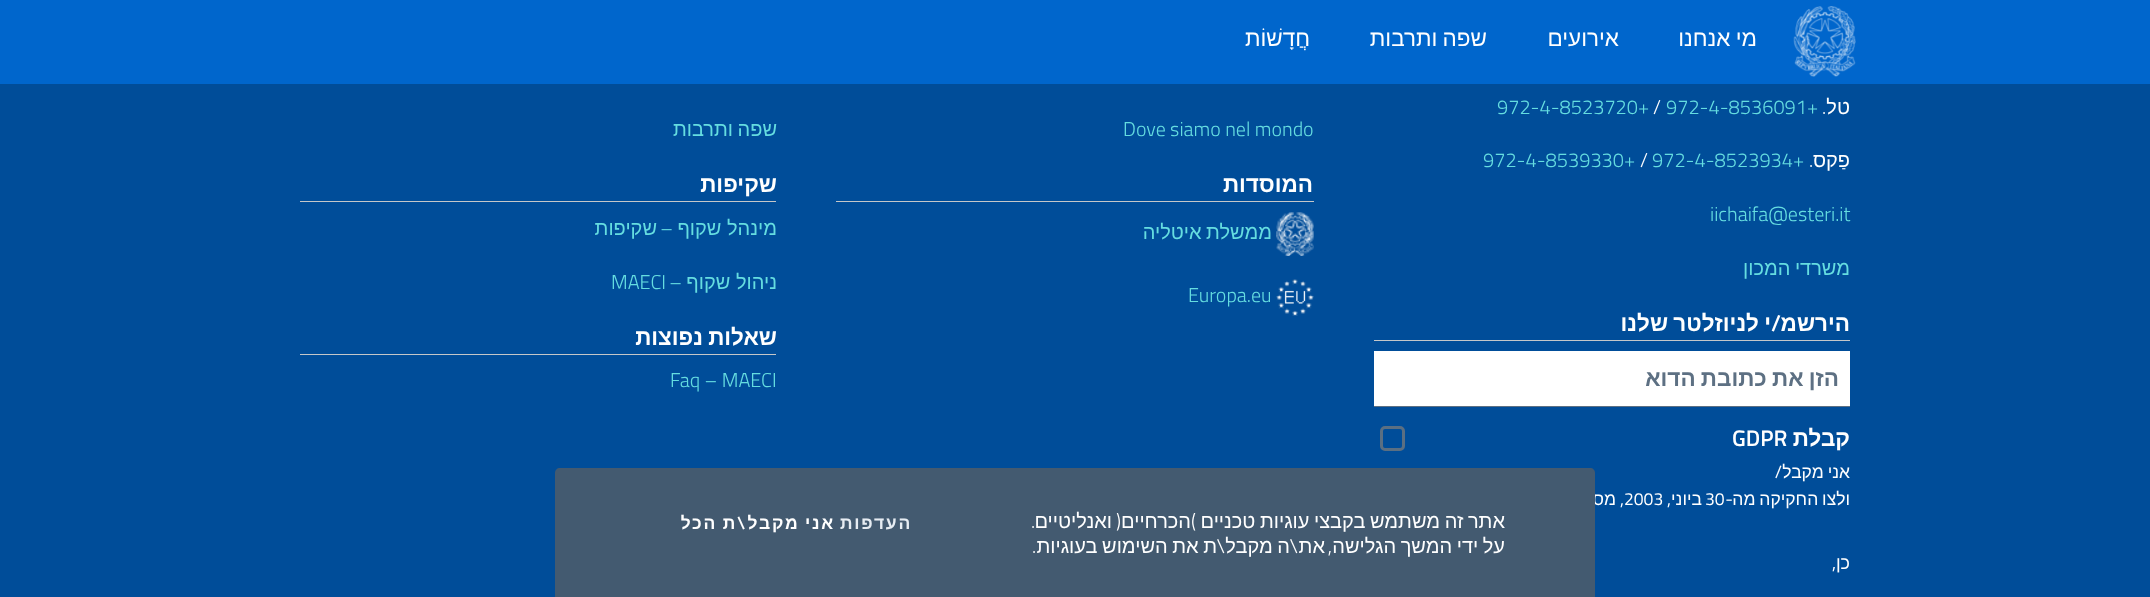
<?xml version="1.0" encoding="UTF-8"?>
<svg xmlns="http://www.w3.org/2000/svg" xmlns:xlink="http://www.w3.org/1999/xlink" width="2150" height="597">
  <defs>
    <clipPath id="clip1"><rect x="1385" y="361" width="454" height="34" /></clipPath>
  </defs>
  <rect width="100%" height="100%" fill="#004d99" />
  <rect width="2150" height="84" fill="#0066cc" />
  <image x="1793" y="6" width="63" height="71" xlink:href="image1.png" />
  <rect x="1374" y="340" width="476" height="1" fill="#c5c7c9" />
  <rect x="1374" y="351" width="476" height="55" fill="#ffffff" />
  <rect x="1374" y="406" width="476" height="1" fill="#5d7083" />
  <rect x="1381.5" y="427.5" width="22" height="22" rx="3.5" fill="none" stroke="#5b6f82" stroke-width="3" />
  <rect x="836" y="201" width="478" height="1" fill="#c5c7c9" />
  <image x="1276" y="212" width="38" height="44" xlink:href="image2.png" />
  <image x="1276" y="279" width="38" height="37" xlink:href="image3.png" />
  <rect x="300" y="201" width="476" height="1" fill="#c5c7c9" />
  <rect x="300" y="354" width="476" height="1" fill="#c5c7c9" />
  <text x="1757" y="46" word-spacing="-1" style="font-family: Liberation Sans; font-size: 22.5px; direction: rtl; fill: #ffffff">מי אנחנו</text>
  <text x="1619" y="46" style="font-family: Liberation Sans; font-size: 22.5px; direction: rtl; fill: #ffffff">אירועים</text>
  <text x="1487" y="46" word-spacing="-1" style="font-family: Liberation Sans; font-size: 22.5px; direction: rtl; fill: #ffffff">שפה ותרבות</text>
  <text x="1310" y="46" style="font-family: Liberation Sans; font-size: 22.5px; direction: rtl; fill: #ffffff">חֲדָשׁוֹת</text>
  <text x="1850" y="114" style="font-family: Liberation Sans; font-size: 20px; direction: rtl; fill: #ffffff">טל</text>
  <text x="1826" y="114" style="font-family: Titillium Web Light; font-size: 20px; font-weight: 300; direction: rtl; fill: #ffffff">.</text>
  <text x="1666" y="114" style="font-family: Titillium Web Light; font-size: 20px; font-weight: 300; fill: #65dde0">972-4-8536091+</text>
  <text x="1653" y="114" style="font-family: Titillium Web Light; font-size: 20px; font-weight: 300; fill: #ffffff">/</text>
  <text x="1497" y="114" style="font-family: Titillium Web Light; font-size: 20px; font-weight: 300; fill: #65dde0">972-4-8523720+</text>
  <text x="1850" y="167" style="font-family: Liberation Sans; font-size: 20px; direction: rtl; fill: #ffffff">פַקס</text>
  <text x="1813" y="167" style="font-family: Titillium Web Light; font-size: 20px; font-weight: 300; direction: rtl; fill: #ffffff">.</text>
  <text x="1652" y="167" style="font-family: Titillium Web Light; font-size: 20px; font-weight: 300; fill: #65dde0">972-4-8523934+</text>
  <text x="1640" y="167" style="font-family: Titillium Web Light; font-size: 20px; font-weight: 300; fill: #ffffff">/</text>
  <text x="1483" y="167" style="font-family: Titillium Web Light; font-size: 20px; font-weight: 300; fill: #65dde0">972-4-8539330+</text>
  <text x="1710" y="221" style="font-family: Titillium Web Light; font-size: 20px; font-weight: 300; fill: #65dde0">iichaifa@esteri.it</text>
  <text x="1850" y="275" word-spacing="-1" style="font-family: Liberation Sans; font-size: 20px; direction: rtl; fill: #65dde0">משרדי המכון</text>
  <text x="1850" y="331" style="font-family: Liberation Sans; font-size: 22.5px; font-weight: bold; direction: rtl; fill: #ffffff">הירשמ</text>
  <text x="1771" y="331" word-spacing="-1" style="font-family: Liberation Sans; font-size: 22.5px; font-weight: bold; direction: rtl; fill: #ffffff">י לניוזלטר שלנו</text>
  <text x="1781" y="331" style="font-family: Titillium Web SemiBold; font-size: 22.5px; font-weight: 600; direction: rtl; fill: #ffffff">/</text>
  <g clip-path="url(#clip1)">
    <text x="1839" y="386" word-spacing="-1" style="font-family: Liberation Sans; font-size: 22.5px; font-weight: bold; direction: rtl; fill: #5d7083">הזן את כתובת הדוא</text>
  </g>
  <text x="1850" y="446" style="font-family: Liberation Sans; font-size: 22.5px; font-weight: bold; direction: rtl; fill: #ffffff">קבלת</text>
  <text x="1732" y="446" style="font-family: Titillium Web SemiBold; font-size: 22.5px; font-weight: 600; fill: #ffffff">GDPR</text>
  <text x="1850" y="478" word-spacing="-1" style="font-family: Liberation Sans; font-size: 17.5px; direction: rtl; fill: #ffffff">אני מקבל</text>
  <text x="1782" y="478" style="font-family: Titillium Web; font-size: 17.5px; direction: rtl; fill: #ffffff">/</text>
  <text x="1850" y="505" word-spacing="-1" style="font-family: Liberation Sans; font-size: 17.5px; direction: rtl; fill: #ffffff">ולצו החקיקה מה</text>
  <text x="1733" y="505" style="font-family: Titillium Web; font-size: 17.5px; direction: rtl; fill: #ffffff">-</text>
  <text x="1705" y="505" style="font-family: Titillium Web; font-size: 17.5px; fill: #ffffff">30</text>
  <text x="1702" y="505" style="font-family: Liberation Sans; font-size: 17.5px; direction: rtl; fill: #ffffff">ביוני</text>
  <text x="1624" y="505" style="font-family: Titillium Web; font-size: 17.5px; fill: #ffffff">2003</text>
  <text x="1616" y="505" style="font-family: Liberation Sans; font-size: 17.5px; direction: rtl; fill: #ffffff">מס</text>
  <text x="1671" y="505" style="font-family: Titillium Web; font-size: 17.5px; direction: rtl; fill: #ffffff">,</text>
  <text x="1624" y="505" style="font-family: Titillium Web; font-size: 17.5px; direction: rtl; fill: #ffffff">,</text>
  <text x="1850" y="569" style="font-family: Liberation Sans; font-size: 18px; direction: rtl; fill: #ffffff">כן</text>
  <text x="1836" y="569" style="font-family: Titillium Web; font-size: 18px; direction: rtl; fill: #ffffff">,</text>
  <text x="1123" y="136" style="font-family: Titillium Web Light; font-size: 20px; font-weight: 300; fill: #65dde0">Dove siamo nel mondo</text>
  <text x="1313" y="192" style="font-family: Liberation Sans; font-size: 22.5px; font-weight: bold; direction: rtl; fill: #ffffff">המוסדות</text>
  <text x="1272" y="239" word-spacing="-1" style="font-family: Liberation Sans; font-size: 20px; direction: rtl; fill: #65dde0">ממשלת איטליה</text>
  <text x="1188" y="302" style="font-family: Titillium Web Light; font-size: 20px; font-weight: 300; fill: #65dde0">Europa.eu</text>
  <text x="777" y="136" word-spacing="-1" style="font-family: Liberation Sans; font-size: 20px; direction: rtl; fill: #65dde0">שפה ותרבות</text>
  <text x="777" y="192" style="font-family: Liberation Sans; font-size: 22.5px; font-weight: bold; direction: rtl; fill: #ffffff">שקיפות</text>
  <text x="777" y="235" style="font-family: Liberation Sans; font-size: 20px; direction: rtl; fill: #65dde0">מינהל שקוף</text>
  <text x="673" y="235" style="font-family: Titillium Web Light; font-size: 20px; font-weight: 300; direction: rtl; fill: #65dde0">–</text>
  <text x="657" y="235" style="font-family: Liberation Sans; font-size: 20px; direction: rtl; fill: #65dde0">שקיפות</text>
  <text x="777" y="289" style="font-family: Liberation Sans; font-size: 20px; direction: rtl; fill: #65dde0">ניהול שקוף</text>
  <text x="682" y="289" style="font-family: Titillium Web Light; font-size: 20px; font-weight: 300; direction: rtl; fill: #65dde0">–</text>
  <text x="611" y="289" style="font-family: Titillium Web Light; font-size: 20px; font-weight: 300; fill: #65dde0">MAECI</text>
  <text x="777" y="345" word-spacing="-1" style="font-family: Liberation Sans; font-size: 22.5px; font-weight: bold; direction: rtl; fill: #ffffff">שאלות נפוצות</text>
  <text x="670" y="387" style="font-family: Titillium Web Light; font-size: 20px; font-weight: 300; fill: #65dde0">Faq – MAECI</text>
  <path d="M 560 468 h 1030 c 3 0 5 2 5 5 v 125 h -1040 v -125 c 0 -3 2 -5 5 -5 z" fill="#435a70" />
  <text x="1505" y="528" word-spacing="-1" style="font-family: Liberation Sans; font-size: 20px; direction: rtl; fill: #ffffff">אתר זה משתמש בקבצי עוגיות טכניים</text>
  <text x="1196" y="528" style="font-family: Titillium Web Light; font-size: 20px; font-weight: 300; direction: rtl; fill: #ffffff">)</text>
  <text x="1191" y="528" style="font-family: Liberation Sans; font-size: 20px; direction: rtl; fill: #ffffff">הכרחיים</text>
  <text x="1121" y="528" style="font-family: Titillium Web Light; font-size: 20px; font-weight: 300; direction: rtl; fill: #ffffff">(</text>
  <text x="1112" y="528" style="font-family: Liberation Sans; font-size: 20px; direction: rtl; fill: #ffffff">ואנליטיים</text>
  <text x="1035" y="528" style="font-family: Titillium Web Light; font-size: 20px; font-weight: 300; direction: rtl; fill: #ffffff">.</text>
  <text x="1505" y="553" word-spacing="-1" style="font-family: Liberation Sans; font-size: 20px; direction: rtl; fill: #ffffff">על ידי המשך הגלישה</text>
  <text x="1332" y="553" style="font-family: Titillium Web Light; font-size: 20px; font-weight: 300; direction: rtl; fill: #ffffff">,</text>
  <text x="1325" y="553" style="font-family: Liberation Sans; font-size: 20px; direction: rtl; fill: #ffffff">את</text>
  <text x="1298" y="553" style="font-family: Titillium Web Light; font-size: 20px; font-weight: 300; direction: rtl; fill: #ffffff">\</text>
  <text x="1290" y="553" word-spacing="-1" style="font-family: Liberation Sans; font-size: 20px; direction: rtl; fill: #ffffff">ה מקבל</text>
  <text x="1217" y="553" word-spacing="-1" style="font-family: Liberation Sans; font-size: 20px; direction: rtl; fill: #ffffff">ת את השימוש בעוגיות</text>
  <text x="1225" y="553" style="font-family: Titillium Web Light; font-size: 20px; font-weight: 300; direction: rtl; fill: #ffffff">\</text>
  <text x="1036" y="553" style="font-family: Titillium Web Light; font-size: 20px; font-weight: 300; direction: rtl; fill: #ffffff">.</text>
  <text x="912" y="529" style="font-family: Liberation Sans; font-size: 17.5px; font-weight: bold; letter-spacing: 1.75px; direction: rtl; fill: #e6ecf2">העדפות</text>
  <text x="835" y="529" word-spacing="-1" style="font-family: Liberation Sans; font-size: 17.5px; font-weight: bold; letter-spacing: 1.75px; direction: rtl; fill: #ffffff">אני מקבל</text>
  <text x="747" y="529" style="font-family: Titillium Web SemiBold; font-size: 17.5px; font-weight: 600; letter-spacing: 1.75px; direction: rtl; fill: #ffffff">\</text>
  <text x="737" y="529" word-spacing="-1" style="font-family: Liberation Sans; font-size: 17.5px; font-weight: bold; letter-spacing: 1.75px; direction: rtl; fill: #ffffff">ת הכל</text>
</svg>
